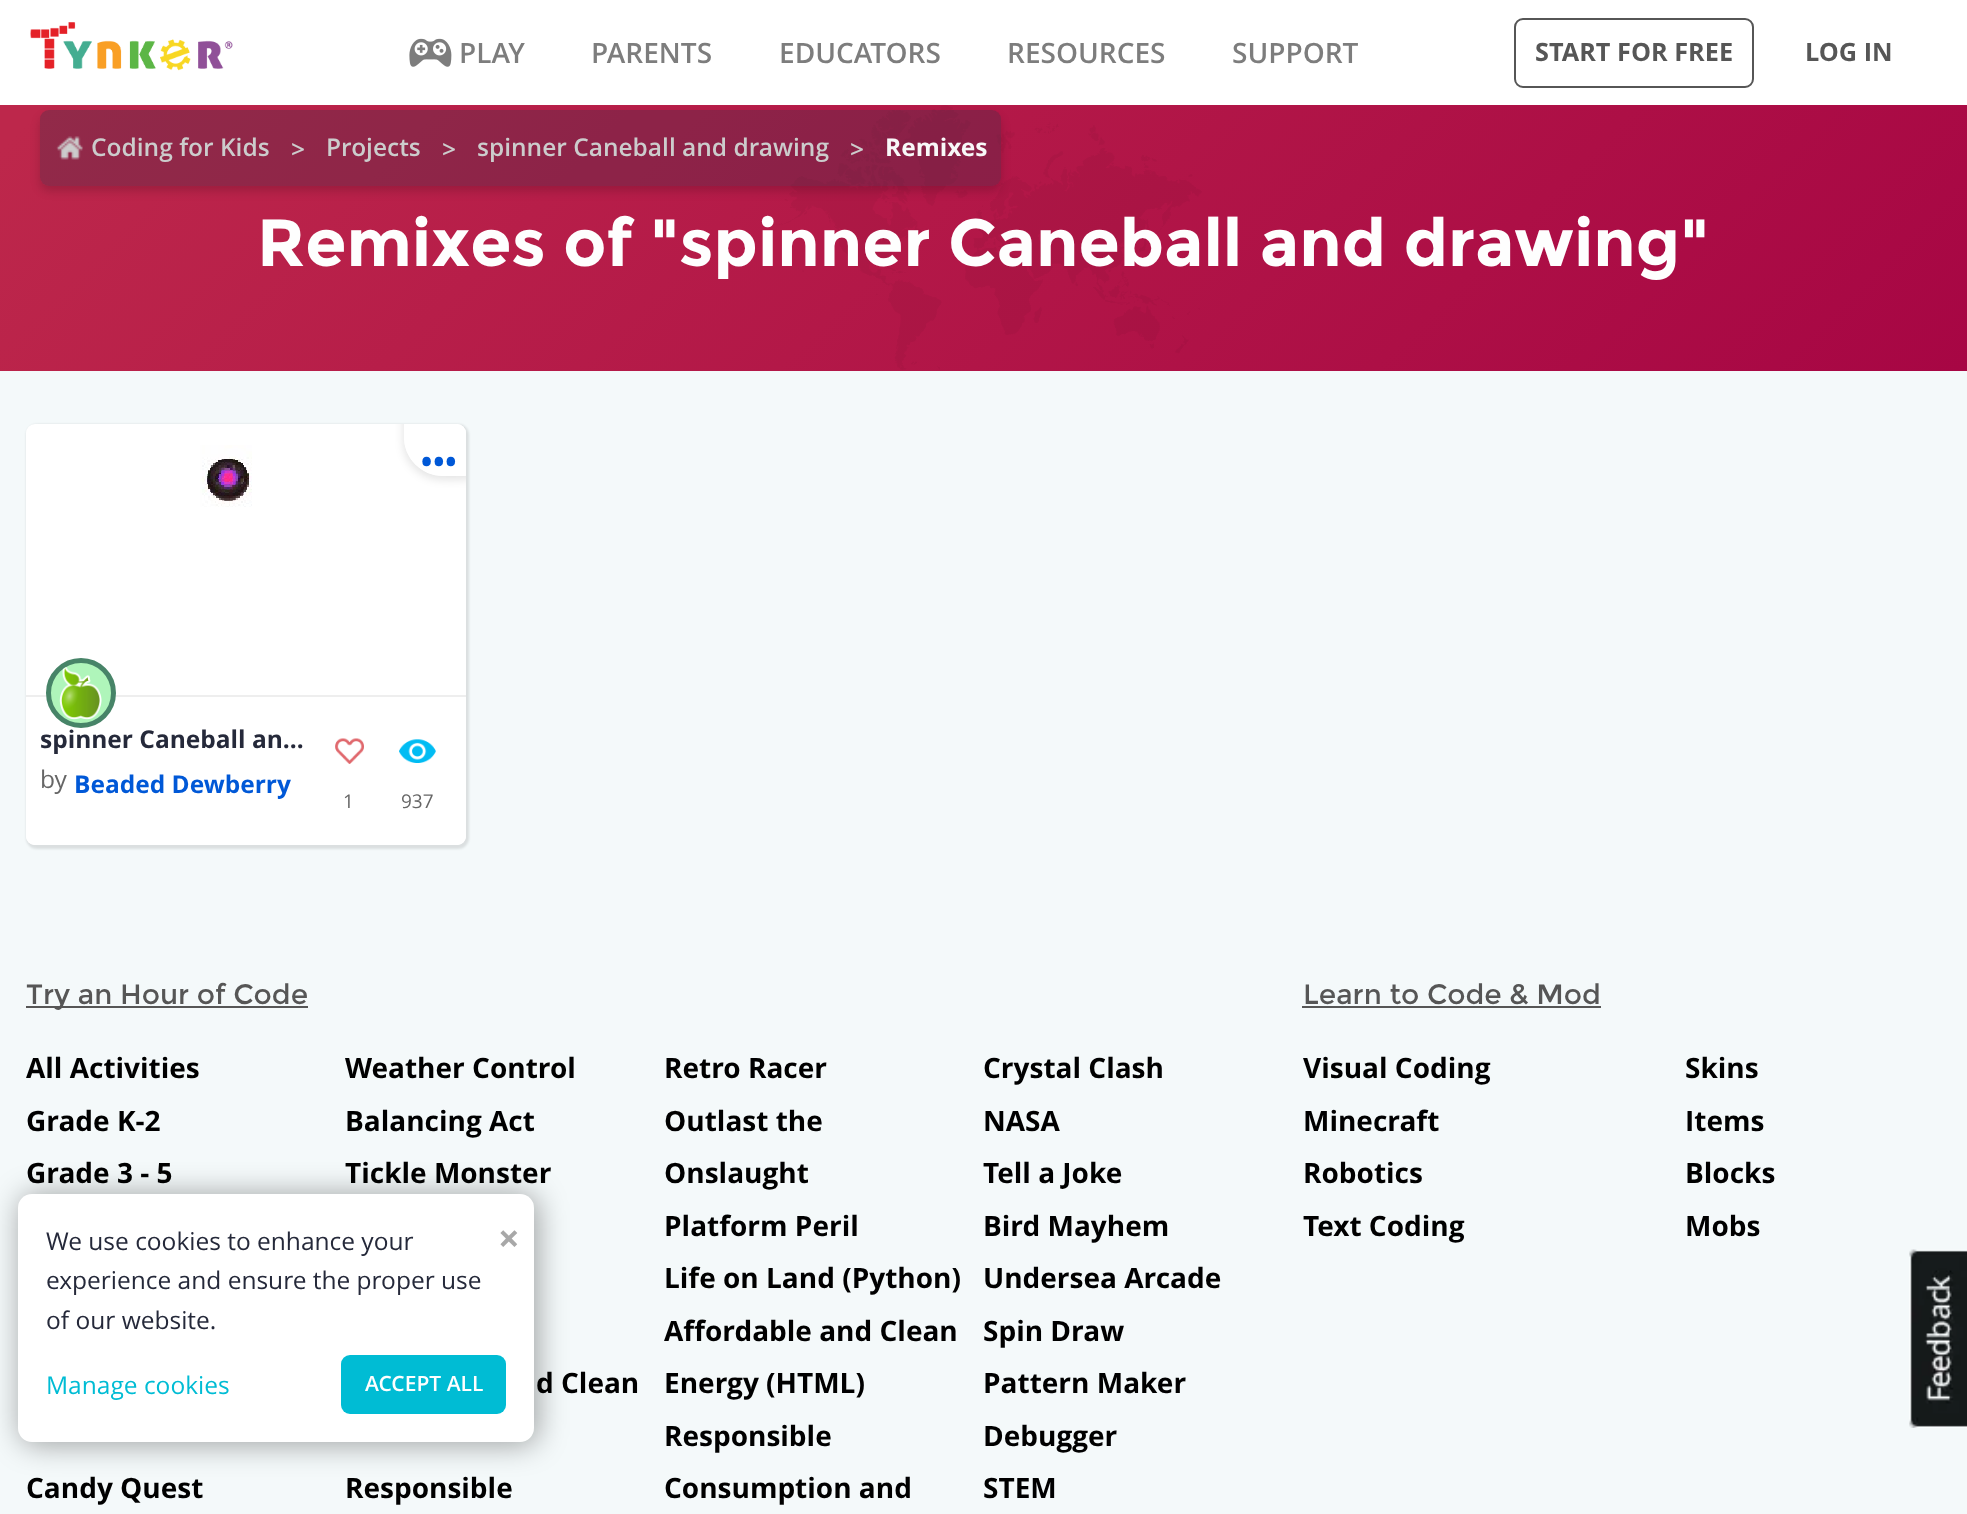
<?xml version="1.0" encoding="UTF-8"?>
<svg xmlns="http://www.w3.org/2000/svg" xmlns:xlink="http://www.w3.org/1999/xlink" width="1967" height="1514">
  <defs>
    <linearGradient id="g1" gradientUnits="userSpaceOnUse" x1="425" y1="-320" x2="1542" y2="796"><stop offset="0.02" stop-color="#bd274b" /><stop offset="1" stop-color="#a70644" /></linearGradient>
    <clipPath id="clip1"><path d="M 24 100 h 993 v 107 h -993 z m 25 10 h 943 c 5 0 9 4 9 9 v 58 c 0 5 -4 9 -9 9 h -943 c -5 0 -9 -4 -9 -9 v -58 c 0 -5 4 -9 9 -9 z" clip-rule="evenodd" /></clipPath>
    <clipPath id="clip2"><rect x="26" y="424" width="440" height="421" rx="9" /></clipPath>
    <clipPath id="clip3"><path d="M 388 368 h 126 v 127 h -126 z m 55 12 h 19 c 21.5 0 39 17.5 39 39 v 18 c 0 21.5 -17.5 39 -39 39 h -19 c -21.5 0 -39 -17.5 -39 -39 v -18 c 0 -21.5 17.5 -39 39 -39 z" clip-rule="evenodd" /></clipPath>
    <clipPath id="clip4"><rect x="26" y="424" width="440" height="421" rx="9" /></clipPath>
  </defs>
  <rect width="100%" height="100%" fill="#ffffff" />
  <image x="30" y="22" width="203" height="49" xlink:href="image1.png" />
  <image x="409" y="38" width="43" height="29" xlink:href="image2.png" />
  <rect x="1515" y="19" width="238" height="68" rx="8" fill="none" stroke="#565656" stroke-width="2" />
  <rect y="105" width="1967" height="266" fill="url(#g1)" />
  <image x="772" y="105" width="430" height="265" xlink:href="image3.png" />
  <g clip-path="url(#clip1)">
    <rect x="40" y="116" width="961" height="75" rx="9" fill="#000000" fill-opacity="0.16" filter="blur(5px)" />
  </g>
  <rect x="40" y="110" width="961" height="76" rx="9" fill="#2e3347" fill-opacity="0.3" />
  <image x="56" y="136" width="27" height="24" xlink:href="image4.png" />
  <rect y="371" width="1967" height="1143" fill="#f4f9fa" />
  <rect x="26" y="424" width="443" height="425" rx="11" fill="#000000" fill-opacity="0.1" filter="blur(1px)" />
  <rect x="26" y="424" width="440" height="421" rx="9" fill="#ffffff" />
  <image x="200" y="445" width="52" height="62" xlink:href="image5.png" />
  <g clip-path="url(#clip2)">
    <g clip-path="url(#clip3)">
      <rect x="403" y="383" width="96" height="97" rx="39" fill="#000000" fill-opacity="0.1" filter="blur(4.5px)" />
    </g>
  </g>
  <g clip-path="url(#clip4)">
    <rect x="404" y="380" width="97" height="96" rx="39" fill="#ffffff" fill-opacity="0.98" />
  </g>
  <path d="M 26 695 h 440 v 141 c 0 5 -4 9 -9 9 h -422 c -5 0 -9 -4 -9 -9 z" fill="#ffffff" />
  <rect x="26" y="695" width="440" height="2" fill="#eeeeee" />
  <circle cx="81" cy="693" r="32.5" fill="#aff5ba" stroke="#478468" stroke-width="5" />
  <image x="59" y="667" width="43" height="53" xlink:href="image6.png" />
  <image x="335" y="738" width="29" height="26" xlink:href="image7.png" />
  <image x="399" y="739" width="37" height="24" xlink:href="image8.png" />
  <rect x="26" y="1006" width="282" height="2" fill="#565656" />
  <rect x="1302" y="1006" width="299" height="2" fill="#565656" />
  <image x="1909" y="1249" width="58" height="179" xlink:href="image9.png" />
  <rect x="21" y="1195" width="516" height="249" rx="14" fill="#000000" fill-opacity="0.37" filter="blur(15px)" />
  <rect x="18" y="1194" width="516" height="248" rx="14" fill="#ffffff" />
  <rect x="341" y="1355" width="165" height="59" rx="9" fill="#00bcd4" />
  <text x="459" y="63" style="font-family: Open Sans; font-size: 28px; font-weight: 600; fill: #7d7d7d">PLAY</text>
  <text x="591" y="63" style="font-family: Open Sans; font-size: 28px; font-weight: 600; fill: #7d7d7d">PARENTS</text>
  <text x="779" y="63" style="font-family: Open Sans; font-size: 28px; font-weight: 600; fill: #7d7d7d">EDUCATORS</text>
  <text x="1007" y="63" style="font-family: Open Sans; font-size: 28px; font-weight: 600; fill: #7d7d7d">RESOURCES</text>
  <text x="1232" y="63" style="font-family: Open Sans; font-size: 28px; font-weight: 600; fill: #7d7d7d">SUPPORT</text>
  <text x="1535" y="61" style="font-family: Open Sans; font-size: 25.25px; font-weight: bold; fill: #565656">START FOR FREE</text>
  <text x="1805" y="61" style="font-family: Open Sans; font-size: 25.25px; font-weight: bold; fill: #565656">LOG IN</text>
  <text x="91" y="156" style="font-family: Open Sans; font-size: 24.5px; font-weight: 600; fill: #cccccc">Coding for Kids</text>
  <text x="291" y="158" style="font-family: Open Sans; font-size: 24.5px; font-weight: 600; fill: #cccccc">&gt;</text>
  <text x="326" y="156" style="font-family: Open Sans; font-size: 24.5px; font-weight: 600; fill: #cccccc">Projects</text>
  <text x="442" y="158" style="font-family: Open Sans; font-size: 24.5px; font-weight: 600; fill: #cccccc">&gt;</text>
  <text x="477" y="156" style="font-family: Open Sans; font-size: 24.5px; font-weight: 600; fill: #cccccc">spinner Caneball and drawing</text>
  <text x="850" y="158" style="font-family: Open Sans; font-size: 24.5px; font-weight: 600; fill: #cccccc">&gt;</text>
  <text x="885" y="156" style="font-family: Open Sans; font-size: 24.5px; font-weight: bold; fill: #f8f8f8">Remixes</text>
  <text x="257" y="266" style="font-family: Montserrat; font-size: 66.5px; font-weight: bold; fill: #fefefe">Remixes of "spinner Caneball and drawing"</text>
  <text x="417" y="487" style="font-family: Open Sans; font-size: 72px; letter-spacing: -7px; fill: #0058d7">···</text>
  <text x="40" y="748" style="font-family: Open Sans; font-size: 24.5px; font-weight: bold; fill: #25293a">spinner Caneball an…</text>
  <text x="40" y="788" style="font-family: Open Sans; font-size: 24.5px; fill: #666666">by</text>
  <text x="74" y="793" style="font-family: Open Sans; font-size: 24.5px; font-weight: bold; fill: #0058d7">Beaded Dewberry</text>
  <text x="343" y="808" style="font-family: Open Sans; font-size: 19px; fill: #666666">1</text>
  <text x="401" y="808" style="font-family: Open Sans; font-size: 19px; fill: #666666">937</text>
  <text x="26" y="1004" style="font-family: Montserrat; font-size: 28px; fill: #565656">Try an Hour of Code</text>
  <text x="26" y="1078" style="font-family: Open Sans; font-size: 28px; font-weight: bold; fill: #000000">All Activities</text>
  <text x="26" y="1131" style="font-family: Open Sans; font-size: 28px; font-weight: bold; fill: #000000">Grade K-2</text>
  <text x="26" y="1183" style="font-family: Open Sans; font-size: 28px; font-weight: bold; fill: #000000">Grade 3 - 5</text>
  <text x="26" y="1498" style="font-family: Open Sans; font-size: 28px; font-weight: bold; fill: #000000">Candy Quest</text>
  <text x="345" y="1078" style="font-family: Open Sans; font-size: 28px; font-weight: bold; fill: #000000">Weather Control</text>
  <text x="345" y="1131" style="font-family: Open Sans; font-size: 28px; font-weight: bold; fill: #000000">Balancing Act</text>
  <text x="345" y="1183" style="font-family: Open Sans; font-size: 28px; font-weight: bold; fill: #000000">Tickle Monster</text>
  <text x="536" y="1393" style="font-family: Open Sans; font-size: 28px; font-weight: bold; fill: #000000">d Clean</text>
  <text x="345" y="1498" style="font-family: Open Sans; font-size: 28px; font-weight: bold; fill: #000000">Responsible</text>
  <text x="664" y="1078" style="font-family: Open Sans; font-size: 28px; font-weight: bold; fill: #000000">Retro Racer</text>
  <text x="664" y="1131" style="font-family: Open Sans; font-size: 28px; font-weight: bold; fill: #000000">Outlast the</text>
  <text x="664" y="1183" style="font-family: Open Sans; font-size: 28px; font-weight: bold; fill: #000000">Onslaught</text>
  <text x="664" y="1236" style="font-family: Open Sans; font-size: 28px; font-weight: bold; fill: #000000">Platform Peril</text>
  <text x="664" y="1288" style="font-family: Open Sans; font-size: 28px; font-weight: bold; fill: #000000">Life on Land (Python)</text>
  <text x="664" y="1341" style="font-family: Open Sans; font-size: 28px; font-weight: bold; fill: #000000">Affordable and Clean</text>
  <text x="664" y="1393" style="font-family: Open Sans; font-size: 28px; font-weight: bold; fill: #000000">Energy (HTML)</text>
  <text x="664" y="1446" style="font-family: Open Sans; font-size: 28px; font-weight: bold; fill: #000000">Responsible</text>
  <text x="664" y="1498" style="font-family: Open Sans; font-size: 28px; font-weight: bold; fill: #000000">Consumption and</text>
  <text x="983" y="1078" style="font-family: Open Sans; font-size: 28px; font-weight: bold; fill: #000000">Crystal Clash</text>
  <text x="983" y="1131" style="font-family: Open Sans; font-size: 28px; font-weight: bold; fill: #000000">NASA</text>
  <text x="983" y="1183" style="font-family: Open Sans; font-size: 28px; font-weight: bold; fill: #000000">Tell a Joke</text>
  <text x="983" y="1236" style="font-family: Open Sans; font-size: 28px; font-weight: bold; fill: #000000">Bird Mayhem</text>
  <text x="983" y="1288" style="font-family: Open Sans; font-size: 28px; font-weight: bold; fill: #000000">Undersea Arcade</text>
  <text x="983" y="1341" style="font-family: Open Sans; font-size: 28px; font-weight: bold; fill: #000000">Spin Draw</text>
  <text x="983" y="1393" style="font-family: Open Sans; font-size: 28px; font-weight: bold; fill: #000000">Pattern Maker</text>
  <text x="983" y="1446" style="font-family: Open Sans; font-size: 28px; font-weight: bold; fill: #000000">Debugger</text>
  <text x="983" y="1498" style="font-family: Open Sans; font-size: 28px; font-weight: bold; fill: #000000">STEM</text>
  <text x="1303" y="1004" style="font-family: Montserrat; font-size: 28px; fill: #565656">Learn to Code &amp; Mod</text>
  <text x="1303" y="1078" style="font-family: Open Sans; font-size: 28px; font-weight: bold; fill: #000000">Visual Coding</text>
  <text x="1303" y="1131" style="font-family: Open Sans; font-size: 28px; font-weight: bold; fill: #000000">Minecraft</text>
  <text x="1303" y="1183" style="font-family: Open Sans; font-size: 28px; font-weight: bold; fill: #000000">Robotics</text>
  <text x="1303" y="1236" style="font-family: Open Sans; font-size: 28px; font-weight: bold; fill: #000000">Text Coding</text>
  <text x="1685" y="1078" style="font-family: Open Sans; font-size: 28px; font-weight: bold; fill: #000000">Skins</text>
  <text x="1685" y="1131" style="font-family: Open Sans; font-size: 28px; font-weight: bold; fill: #000000">Items</text>
  <text x="1685" y="1183" style="font-family: Open Sans; font-size: 28px; font-weight: bold; fill: #000000">Blocks</text>
  <text x="1685" y="1236" style="font-family: Open Sans; font-size: 28px; font-weight: bold; fill: #000000">Mobs</text>
  <text x="46" y="1250" style="font-family: Open Sans; font-size: 24.5px; fill: #25293a">We use cookies to enhance your</text>
  <text x="46" y="1289" style="font-family: Open Sans; font-size: 24.5px; fill: #25293a">experience and ensure the proper use</text>
  <text x="46" y="1329" style="font-family: Open Sans; font-size: 24.5px; fill: #25293a">of our website.</text>
  <text x="46" y="1394" style="font-family: Open Sans; font-size: 24.5px; fill: #00bcd4">Manage cookies</text>
  <text x="365" y="1391" style="font-family: Open Sans; font-size: 21px; font-weight: 600; fill: #fefefe">ACCEPT ALL</text>
  <text x="498" y="1252" style="font-family: Open Sans; font-size: 38px; font-weight: bold; fill: #a8a8a8">×</text>
</svg>
